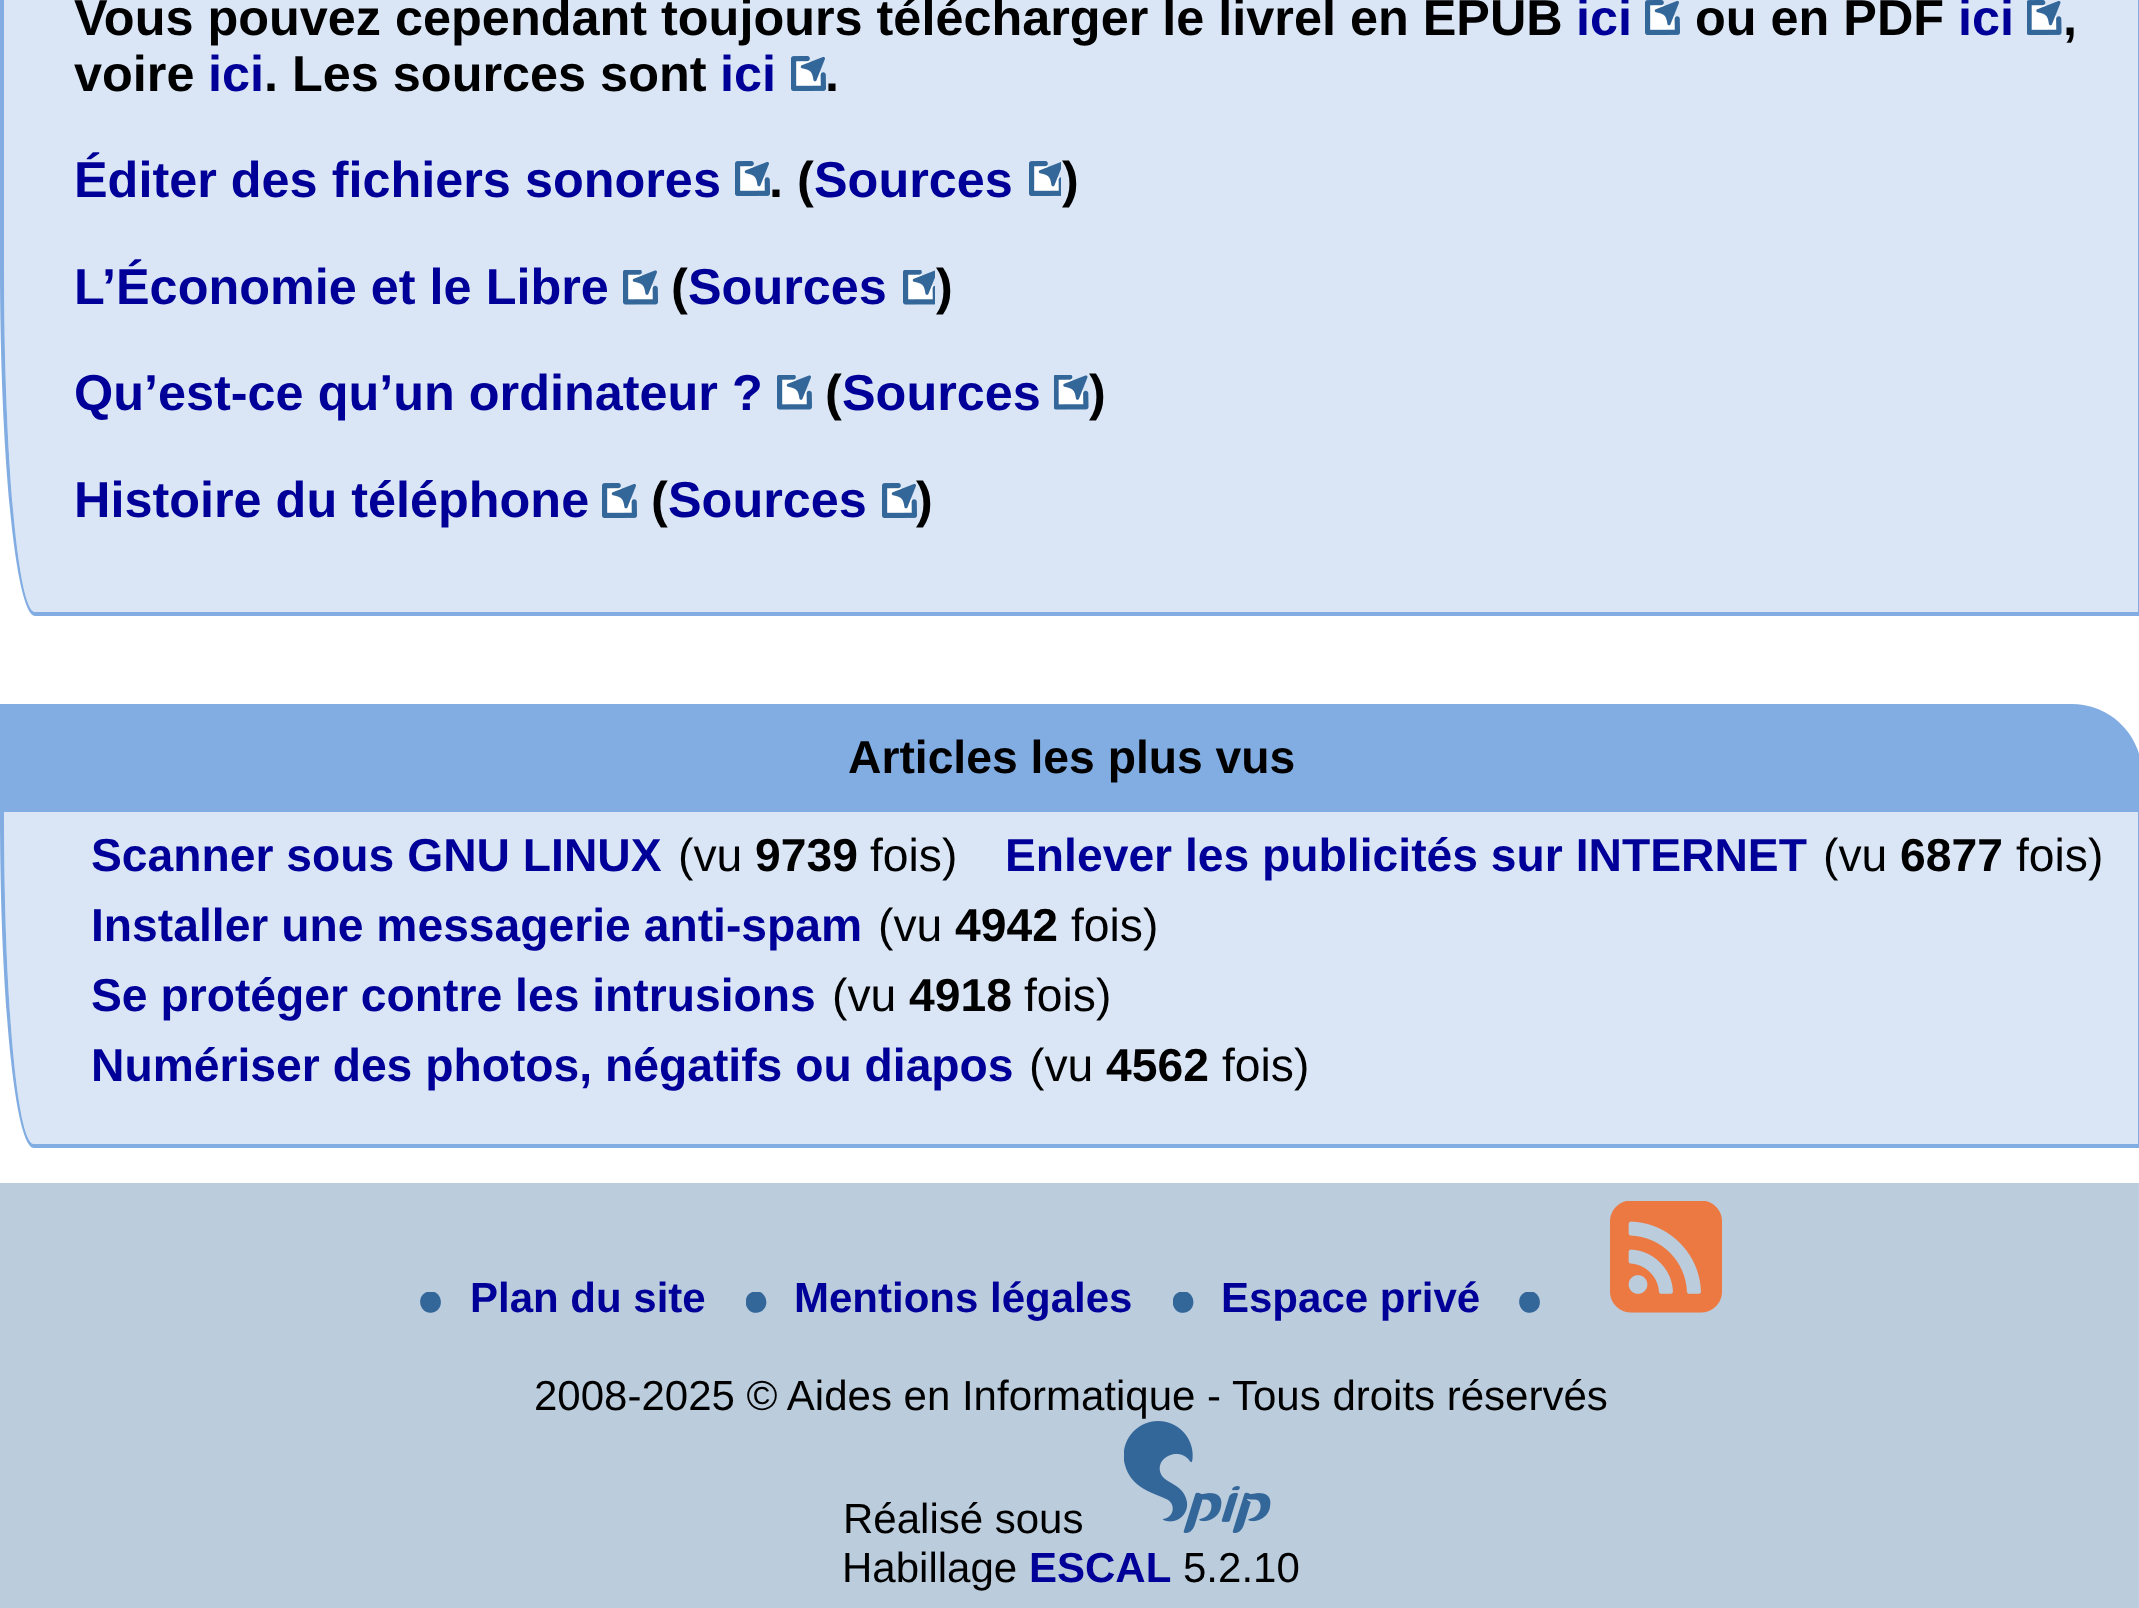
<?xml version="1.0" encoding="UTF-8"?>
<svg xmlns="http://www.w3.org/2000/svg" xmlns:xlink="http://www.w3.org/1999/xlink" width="2139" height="1608">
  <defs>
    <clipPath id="clip1"><rect x="420" y="1292" width="21" height="21" /></clipPath>
    <clipPath id="clip2"><rect x="746" y="1292" width="21" height="21" /></clipPath>
    <clipPath id="clip3"><rect x="1173" y="1292" width="21" height="21" /></clipPath>
    <clipPath id="clip4"><rect x="1519" y="1292" width="21" height="21" /></clipPath>
  </defs>
  <rect width="100%" height="100%" fill="#ffffff" />
  <path d="M 4 -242 h 2134 v 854 h -2103 c -17 0 -31 -155 -31 -346 z" fill="#dae6f6" />
  <path d="M 0 -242 h 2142 v 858 h -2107 c -19 0 -35 -157 -35 -350 z m 4 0 h 2134 v 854 h -2103 c -17 0 -31 -155 -31 -346 z" fill="#82ade2" fill-rule="evenodd" />
  <image x="1645" y="0" width="35" height="35" xlink:href="image1.png" />
  <image x="2027" y="0" width="35" height="35" xlink:href="image2.png" />
  <image x="791" y="56" width="35" height="35" xlink:href="image1.png" />
  <image x="735" y="161" width="35" height="35" xlink:href="image1.png" />
  <image x="1029" y="161" width="32" height="35" xlink:href="image3.png" />
  <image x="623" y="270" width="35" height="35" xlink:href="image4.png" />
  <image x="903" y="270" width="32" height="35" xlink:href="image5.png" />
  <image x="777" y="375" width="35" height="35" xlink:href="image4.png" />
  <image x="1054" y="375" width="35" height="35" xlink:href="image6.png" />
  <image x="602" y="483" width="35" height="35" xlink:href="image1.png" />
  <image x="882" y="483" width="35" height="35" xlink:href="image1.png" />
  <path d="M 0 704 h 2072 c 38.5 0 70 31.5 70 70 v 38 h -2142 z" fill="#82ade2" />
  <path d="M 4 812 h 2134 v 332 h -2104 c -17 0 -30 -148 -30 -332 z" fill="#dae6f6" />
  <path d="M 0 812 h 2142 v 336 h -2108 c -19 0 -34 -150 -34 -336 z m 4 0 h 2134 v 332 h -2104 c -17 0 -30 -148 -30 -332 z" fill="#82ade2" fill-rule="evenodd" />
  <rect y="1183" width="2139" height="425" fill="#bbccdd" />
  <g clip-path="url(#clip1)">
    <path d="M 428.5 1291.5 c 13.5 -2.5 17.5 18 4 21 c -13.5 2.5 -17.5 -18 -4 -21 z" fill="#336699" fill-rule="evenodd" />
  </g>
  <g clip-path="url(#clip2)">
    <path d="M 754 1291.5 c 13.5 -2.5 17.5 18 4 21 c -13.5 2.5 -17.5 -18 -4 -21 z" fill="#336699" fill-rule="evenodd" />
  </g>
  <g clip-path="url(#clip3)">
    <path d="M 1181 1291.5 c 13.5 -2.5 17.5 18 4 21 c -13.5 2.5 -17.5 -18 -4 -21 z" fill="#336699" fill-rule="evenodd" />
  </g>
  <g clip-path="url(#clip4)">
    <path d="M 1527.5 1291.5 c 13.5 -2.5 17.5 18 4 21 c -13.5 2.5 -17.5 -18 -4 -21 z" fill="#336699" fill-rule="evenodd" />
  </g>
  <image x="1610" y="1201" width="112" height="112" xlink:href="image7.png" />
  <image x="1124" y="1421" width="147" height="112" xlink:href="image8.png" />
  <text x="74" y="35" style="font-family: Liberation Sans; font-size: 50.4px; font-weight: bold; fill: #000000">Vous pouvez cependant toujours télécharger le livrel en EPUB</text>
  <text x="1576" y="35" style="font-family: Liberation Sans; font-size: 50.4px; font-weight: bold; fill: #000099">ici</text>
  <text x="1695" y="35" style="font-family: Liberation Sans; font-size: 50.4px; font-weight: bold; fill: #000000">ou en PDF</text>
  <text x="1958" y="35" style="font-family: Liberation Sans; font-size: 50.4px; font-weight: bold; fill: #000099">ici</text>
  <text x="2063" y="35" style="font-family: Liberation Sans; font-size: 50.4px; font-weight: bold; fill: #000000">,</text>
  <text x="74" y="91" style="font-family: Liberation Sans; font-size: 50.4px; font-weight: bold; fill: #000000">voire</text>
  <text x="208" y="91" style="font-family: Liberation Sans; font-size: 50.4px; font-weight: bold; fill: #000099">ici</text>
  <text x="264" y="91" style="font-family: Liberation Sans; font-size: 50.4px; font-weight: bold; fill: #000000">. Les sources sont</text>
  <text x="720" y="91" style="font-family: Liberation Sans; font-size: 50.4px; font-weight: bold; fill: #000099">ici</text>
  <text x="825" y="91" style="font-family: Liberation Sans; font-size: 50.4px; font-weight: bold; fill: #000000">.</text>
  <text x="74" y="197" style="font-family: Liberation Sans; font-size: 50.4px; font-weight: bold; fill: #000099">Éditer des fichiers sonores</text>
  <text x="769" y="197" style="font-family: Liberation Sans; font-size: 50.4px; font-weight: bold; fill: #000000">. (</text>
  <text x="814" y="197" style="font-family: Liberation Sans; font-size: 50.4px; font-weight: bold; fill: #000099">Sources</text>
  <text x="1062" y="197" style="font-family: Liberation Sans; font-size: 50.4px; font-weight: bold; fill: #000000">)</text>
  <text x="74" y="304" style="font-family: Liberation Sans; font-size: 50.4px; font-weight: bold; fill: #000099">L’Économie et le Libre</text>
  <text x="671" y="304" style="font-family: Liberation Sans; font-size: 50.4px; font-weight: bold; fill: #000000">(</text>
  <text x="688" y="304" style="font-family: Liberation Sans; font-size: 50.4px; font-weight: bold; fill: #000099">Sources</text>
  <text x="936" y="304" style="font-family: Liberation Sans; font-size: 50.4px; font-weight: bold; fill: #000000">)</text>
  <text x="74" y="410" style="font-family: Liberation Sans; font-size: 50.4px; font-weight: bold; fill: #000099">Qu’est-ce qu’un ordinateur ?</text>
  <text x="825" y="410" style="font-family: Liberation Sans; font-size: 50.4px; font-weight: bold; fill: #000000">(</text>
  <text x="842" y="410" style="font-family: Liberation Sans; font-size: 50.4px; font-weight: bold; fill: #000099">Sources</text>
  <text x="1089" y="410" style="font-family: Liberation Sans; font-size: 50.4px; font-weight: bold; fill: #000000">)</text>
  <text x="74" y="517" style="font-family: Liberation Sans; font-size: 50.4px; font-weight: bold; fill: #000099">Histoire du téléphone</text>
  <text x="651" y="517" style="font-family: Liberation Sans; font-size: 50.4px; font-weight: bold; fill: #000000">(</text>
  <text x="668" y="517" style="font-family: Liberation Sans; font-size: 50.4px; font-weight: bold; fill: #000099">Sources</text>
  <text x="916" y="517" style="font-family: Liberation Sans; font-size: 50.4px; font-weight: bold; fill: #000000">)</text>
  <text x="848" y="773" style="font-family: Liberation Sans; font-size: 46.25px; font-weight: bold; fill: #000000">Articles les plus vus</text>
  <text x="91" y="871" style="font-family: Liberation Sans; font-size: 46.25px; font-weight: bold; fill: #000099">Scanner sous GNU LINUX</text>
  <text x="678" y="871" style="font-family: Liberation Sans; font-size: 46.25px; fill: #000000">(vu</text>
  <text x="755" y="871" style="font-family: Liberation Sans; font-size: 46.25px; font-weight: bold; fill: #000000">9739</text>
  <text x="870" y="871" style="font-family: Liberation Sans; font-size: 46.25px; fill: #000000">fois)</text>
  <text x="1005" y="871" style="font-family: Liberation Sans; font-size: 46.25px; font-weight: bold; fill: #000099">Enlever les publicités sur INTERNET</text>
  <text x="1823" y="871" style="font-family: Liberation Sans; font-size: 46.25px; fill: #000000">(vu</text>
  <text x="1900" y="871" style="font-family: Liberation Sans; font-size: 46.25px; font-weight: bold; fill: #000000">6877</text>
  <text x="2016" y="871" style="font-family: Liberation Sans; font-size: 46.25px; fill: #000000">fois)</text>
  <text x="91" y="941" style="font-family: Liberation Sans; font-size: 46.25px; font-weight: bold; fill: #000099">Installer une messagerie anti-spam</text>
  <text x="878" y="941" style="font-family: Liberation Sans; font-size: 46.25px; fill: #000000">(vu</text>
  <text x="955" y="941" style="font-family: Liberation Sans; font-size: 46.25px; font-weight: bold; fill: #000000">4942</text>
  <text x="1071" y="941" style="font-family: Liberation Sans; font-size: 46.25px; fill: #000000">fois)</text>
  <text x="91" y="1011" style="font-family: Liberation Sans; font-size: 46.25px; font-weight: bold; fill: #000099">Se protéger contre les intrusions</text>
  <text x="832" y="1011" style="font-family: Liberation Sans; font-size: 46.25px; fill: #000000">(vu</text>
  <text x="909" y="1011" style="font-family: Liberation Sans; font-size: 46.25px; font-weight: bold; fill: #000000">4918</text>
  <text x="1024" y="1011" style="font-family: Liberation Sans; font-size: 46.25px; fill: #000000">fois)</text>
  <text x="91" y="1081" style="font-family: Liberation Sans; font-size: 46.25px; font-weight: bold; fill: #000099">Numériser des photos, négatifs ou diapos</text>
  <text x="1029" y="1081" style="font-family: Liberation Sans; font-size: 46.25px; fill: #000000">(vu</text>
  <text x="1106" y="1081" style="font-family: Liberation Sans; font-size: 46.25px; font-weight: bold; fill: #000000">4562</text>
  <text x="1222" y="1081" style="font-family: Liberation Sans; font-size: 46.25px; fill: #000000">fois)</text>
  <text x="470" y="1312" style="font-family: Liberation Sans; font-size: 42px; font-weight: bold; fill: #000099">Plan du site</text>
  <text x="794" y="1312" style="font-family: Liberation Sans; font-size: 42px; font-weight: bold; fill: #000099">Mentions légales</text>
  <text x="1221" y="1312" style="font-family: Liberation Sans; font-size: 42px; font-weight: bold; fill: #000099">Espace privé</text>
  <text x="534" y="1410" style="font-family: Liberation Sans; font-size: 42px; fill: #000000">2008-2025 © Aides en Informatique -</text>
  <text x="1232" y="1410" style="font-family: Liberation Sans; font-size: 42px; fill: #000000">Tous droits réservés</text>
  <text x="843" y="1533" style="font-family: Liberation Sans; font-size: 42px; fill: #000000">Réalisé sous</text>
  <text x="842" y="1582" style="font-family: Liberation Sans; font-size: 42px; fill: #000000">Habillage</text>
  <text x="1029" y="1582" style="font-family: Liberation Sans; font-size: 42px; font-weight: bold; fill: #000099">ESCAL</text>
  <text x="1183" y="1582" style="font-family: Liberation Sans; font-size: 42px; fill: #000000">5.2.10</text>
</svg>
